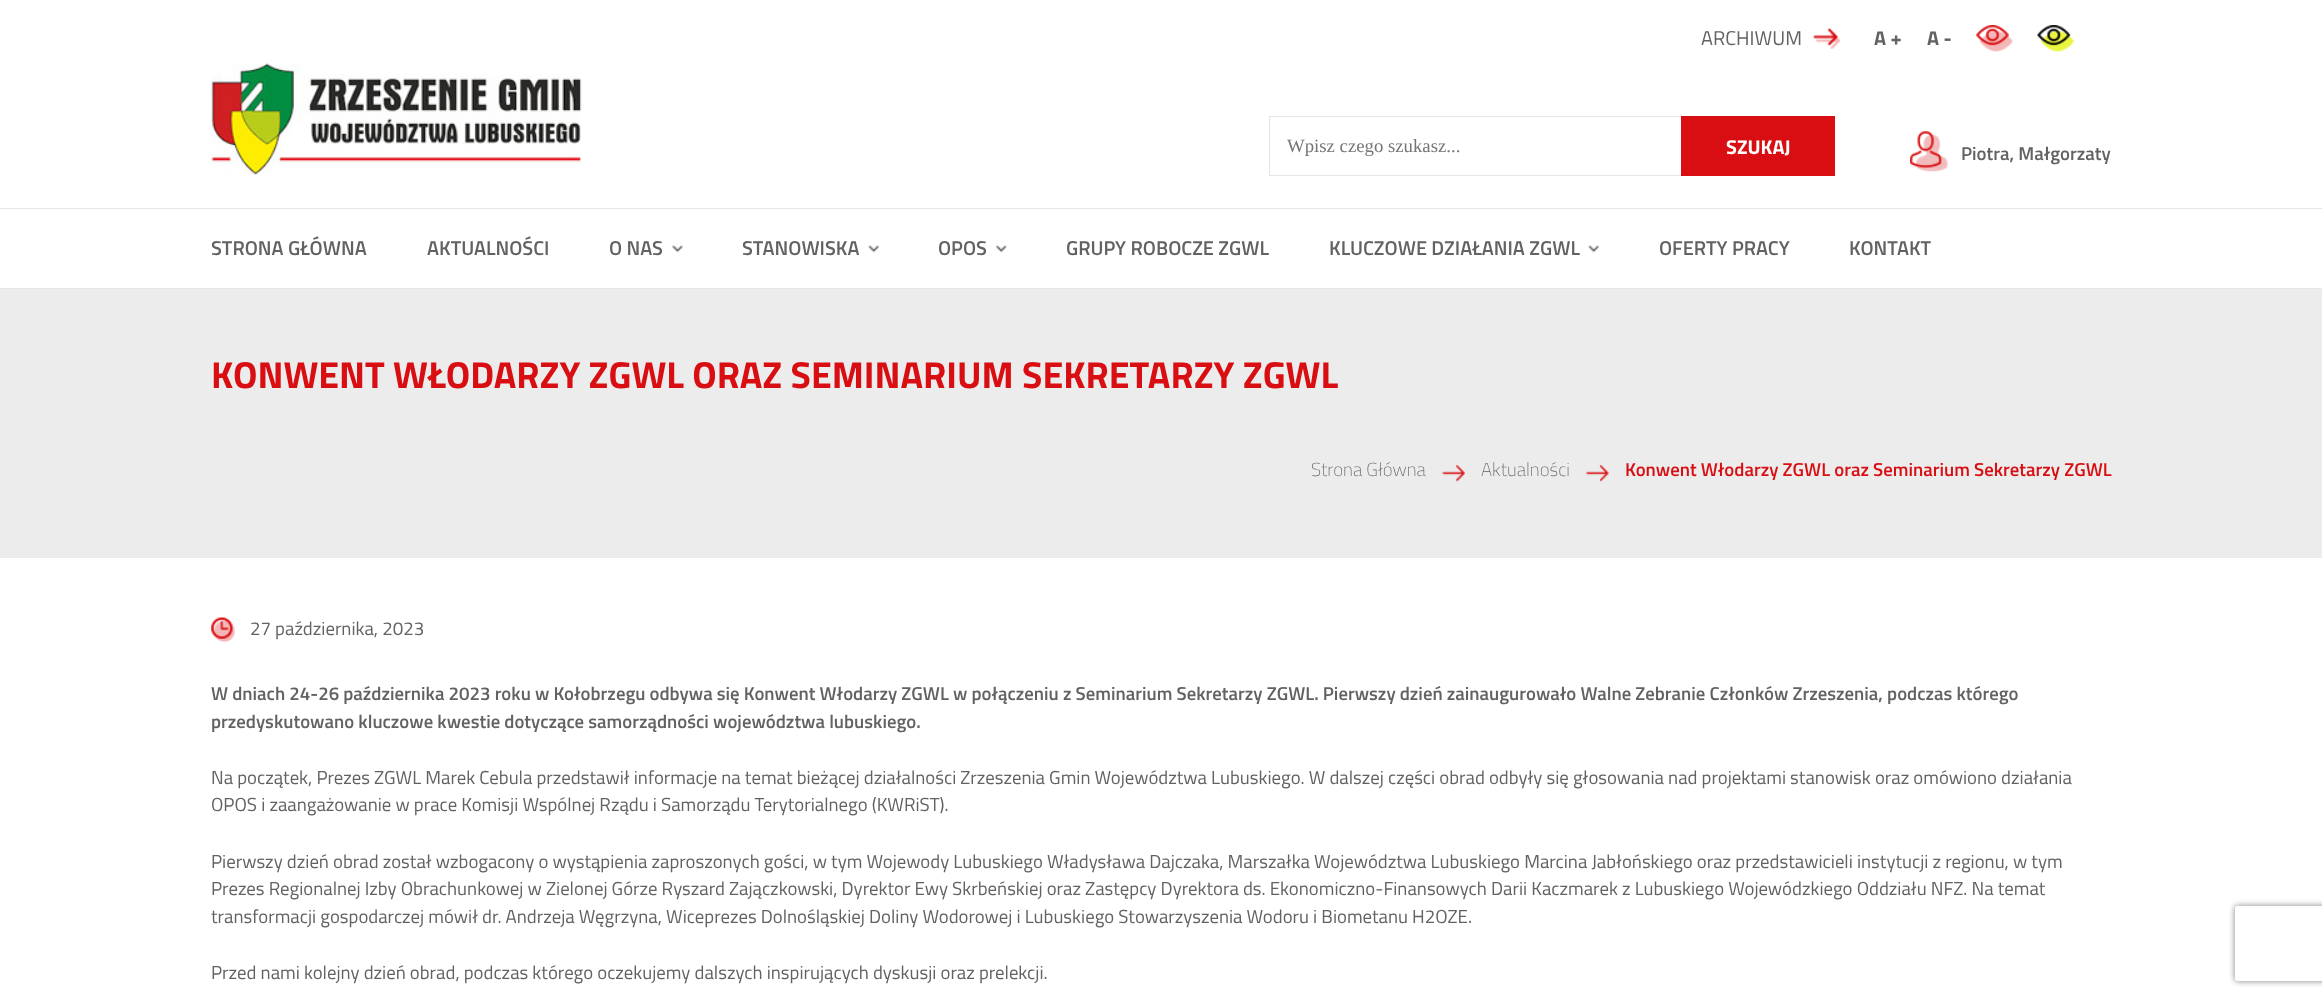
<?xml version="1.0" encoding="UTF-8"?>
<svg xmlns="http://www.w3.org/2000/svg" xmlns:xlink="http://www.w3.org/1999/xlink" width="2322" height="998">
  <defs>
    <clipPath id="clip1"><path d="M 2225 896 h 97 v 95 h -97 z m 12.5 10 h 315 c 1.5 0 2.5 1 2.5 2.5 v 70 c 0 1.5 -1 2.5 -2.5 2.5 h -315 c -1.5 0 -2.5 -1 -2.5 -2.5 v -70 c 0 -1.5 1 -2.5 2.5 -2.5 z" clip-rule="evenodd" /></clipPath>
  </defs>
  <rect width="100%" height="100%" fill="#ffffff" />
  <image x="1813" y="28" width="27" height="21" xlink:href="image1.png" />
  <image x="1976" y="25" width="37" height="27" xlink:href="image2.png" />
  <image x="2037" y="25" width="37" height="27" xlink:href="image3.png" />
  <image x="211" y="63" width="371" height="113" xlink:href="image4.png" />
  <rect x="1269" y="116" width="412" height="1" fill="#e5e5e5" />
  <rect x="1269" y="175" width="412" height="1" fill="#e5e5e5" />
  <rect x="1269" y="116" width="1" height="60" fill="#e5e5e5" />
  <rect x="1681" y="116" width="154" height="60" fill="#d90e12" />
  <image x="1910" y="131" width="38" height="41" xlink:href="image5.png" />
  <rect y="208" width="2322" height="1" fill="#e5e5e5" />
  <rect y="288" width="2322" height="1" fill="#e5e5e5" />
  <image x="672" y="245" width="11" height="8" xlink:href="image6.png" />
  <image x="868" y="245" width="11" height="8" xlink:href="image7.png" />
  <image x="996" y="245" width="11" height="8" xlink:href="image8.png" />
  <image x="1588" y="245" width="11" height="8" xlink:href="image9.png" />
  <rect y="289" width="2322" height="269" fill="#ececec" />
  <image x="1442" y="465" width="23" height="17" xlink:href="image10.png" />
  <image x="1586" y="465" width="23" height="17" xlink:href="image11.png" />
  <image x="211" y="617" width="24" height="26" xlink:href="image12.png" />
  <g clip-path="url(#clip1)">
    <rect x="2235" y="906" width="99" height="75" rx="2.5" fill="#808080" filter="blur(3px)" />
  </g>
  <text x="1701" y="45" style="font-family: Titillium Web; font-size: 20px; fill: #626262">ARCHIWUM</text>
  <text x="1874" y="45" style="font-family: Titillium Web; font-size: 20px; font-weight: bold; fill: #626262">A +</text>
  <text x="1927" y="45" style="font-family: Titillium Web; font-size: 20px; font-weight: bold; fill: #626262">A -</text>
  <text x="1287" y="152" style="font-family: Liberation Serif; font-size: 18.75px; fill: #757575">Wpisz czego szukasz...</text>
  <text x="1726" y="154" style="font-family: Titillium Web; font-size: 20px; font-weight: bold; fill: #ffffff">SZUKAJ</text>
  <text x="1961" y="160" style="font-family: Titillium Web; font-size: 18.75px; font-weight: 600; fill: #626262">Piotra, Małgorzaty</text>
  <text x="211" y="255" style="font-family: Titillium Web; font-size: 20px; font-weight: 600; fill: #626262">STRONA GŁÓWNA</text>
  <text x="427" y="255" style="font-family: Titillium Web; font-size: 20px; font-weight: 600; fill: #626262">AKTUALNOŚCI</text>
  <text x="609" y="255" style="font-family: Titillium Web; font-size: 20px; font-weight: 600; fill: #626262">O NAS</text>
  <text x="742" y="255" style="font-family: Titillium Web; font-size: 20px; font-weight: 600; fill: #626262">STANOWISKA</text>
  <text x="938" y="255" style="font-family: Titillium Web; font-size: 20px; font-weight: 600; fill: #626262">OPOS</text>
  <text x="1066" y="255" style="font-family: Titillium Web; font-size: 20px; font-weight: 600; fill: #626262">GRUPY ROBOCZE ZGWL</text>
  <text x="1329" y="255" style="font-family: Titillium Web; font-size: 20px; font-weight: 600; fill: #626262">KLUCZOWE DZIAŁANIA ZGWL</text>
  <text x="1659" y="255" style="font-family: Titillium Web; font-size: 20px; font-weight: 600; fill: #626262">OFERTY PRACY</text>
  <text x="1849" y="255" style="font-family: Titillium Web; font-size: 20px; font-weight: 600; fill: #626262">KONTAKT</text>
  <text x="211" y="388" style="font-family: Titillium Web; font-size: 37.5px; font-weight: bold; fill: #d90e12">KONWENT WŁODARZY ZGWL ORAZ SEMINARIUM SEKRETARZY ZGWL</text>
  <text x="1311" y="476" style="font-family: Titillium Web; font-size: 18.75px; font-weight: 100; fill: #626262">Strona Główna</text>
  <text x="1481" y="476" style="font-family: Titillium Web; font-size: 18.75px; font-weight: 100; fill: #626262">Aktualności</text>
  <text x="1625" y="476" style="font-family: Titillium Web; font-size: 18.75px; font-weight: 600; fill: #d90e12">Konwent Włodarzy ZGWL oraz Seminarium Sekretarzy ZGWL</text>
  <text x="250" y="635" style="font-family: Titillium Web; font-size: 18.75px; fill: #626262">27 października, 2023</text>
  <text x="211" y="700" style="font-family: Titillium Web; font-size: 18.75px; font-weight: 600; fill: #626262">W dniach 24-26 października 2023 roku w Kołobrzegu odbywa się Konwent Włodarzy ZGWL w połączeniu z Seminarium Sekretarzy ZGWL. Pierwszy dzień zainaugurowało Walne Zebranie Członków Zrzeszenia, podczas którego</text>
  <text x="211" y="728" style="font-family: Titillium Web; font-size: 18.75px; font-weight: 600; fill: #626262">przedyskutowano kluczowe kwestie dotyczące samorządności województwa lubuskiego.</text>
  <text x="211" y="784" style="font-family: Titillium Web; font-size: 18.75px; fill: #626262">Na początek, Prezes ZGWL Marek Cebula przedstawił informacje na temat bieżącej działalności Zrzeszenia Gmin Województwa Lubuskiego. W dalszej części obrad odbyły się głosowania nad projektami stanowisk oraz omówiono działania</text>
  <text x="211" y="811" style="font-family: Titillium Web; font-size: 18.75px; fill: #626262">OPOS i zaangażowanie w prace Komisji Wspólnej Rządu i Samorządu Terytorialnego (KWRiST).</text>
  <text x="211" y="868" style="font-family: Titillium Web; font-size: 18.75px; fill: #626262">Pierwszy dzień obrad został wzbogacony o wystąpienia zaproszonych gości, w tym Wojewody Lubuskiego Władysława Dajczaka, Marszałka Województwa Lubuskiego Marcina Jabłońskiego oraz przedstawicieli instytucji z regionu, w tym</text>
  <text x="211" y="895" style="font-family: Titillium Web; font-size: 18.75px; fill: #626262">Prezes Regionalnej Izby Obrachunkowej w Zielonej Górze Ryszard Zajączkowski, Dyrektor Ewy Skrbeńskiej oraz Zastępcy Dyrektora ds. Ekonomiczno-Finansowych Darii Kaczmarek z Lubuskiego Wojewódzkiego Oddziału NFZ. Na temat</text>
  <text x="211" y="923" style="font-family: Titillium Web; font-size: 18.75px; fill: #626262">transformacji gospodarczej mówił dr. Andrzeja Węgrzyna, Wiceprezes Dolnośląskiej Doliny Wodorowej i Lubuskiego Stowarzyszenia Wodoru i Biometanu H2OZE.</text>
  <text x="211" y="979" style="font-family: Titillium Web; font-size: 18.75px; fill: #626262">Przed nami kolejny dzień obrad, podczas którego oczekujemy dalszych inspirujących dyskusji oraz prelekcji.</text>
</svg>
